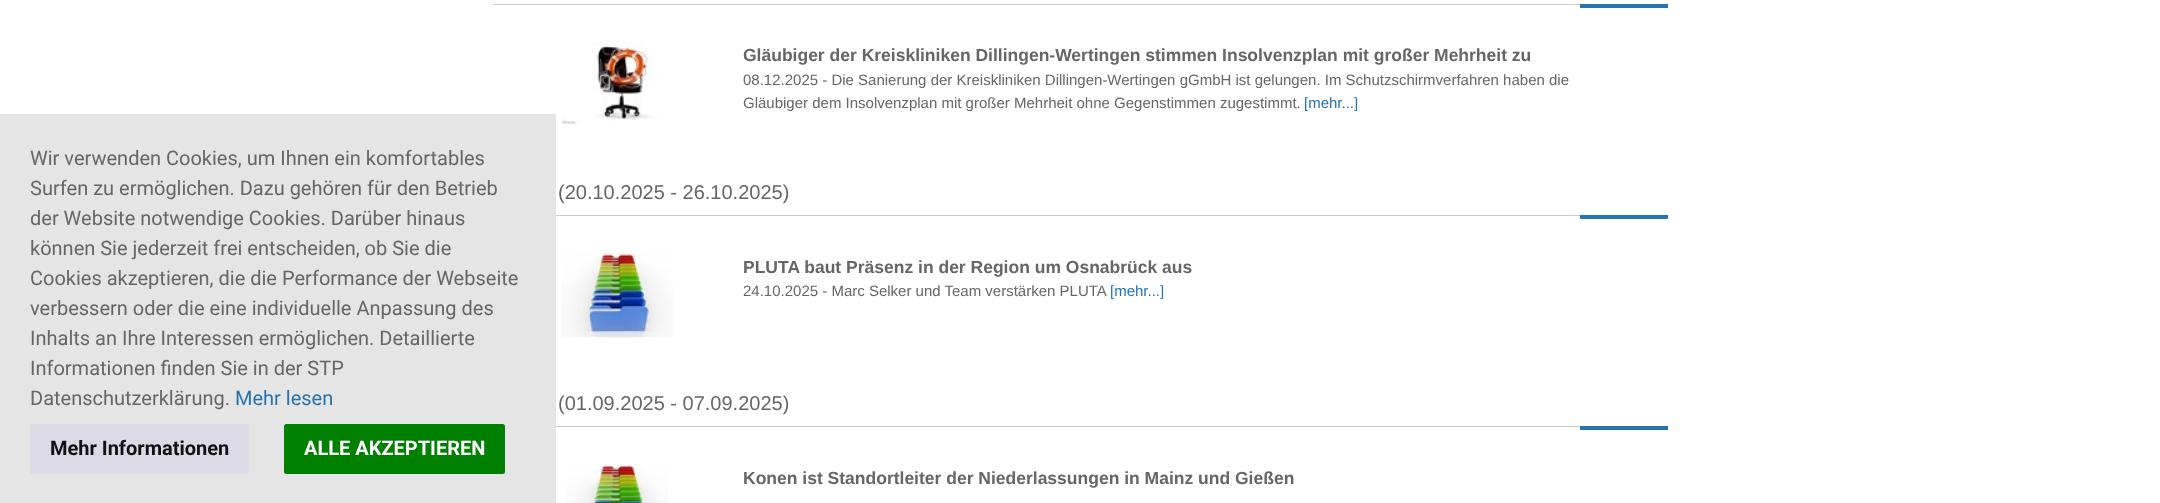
<?xml version="1.0" encoding="UTF-8"?>
<svg xmlns="http://www.w3.org/2000/svg" xmlns:xlink="http://www.w3.org/1999/xlink" width="2160" height="503">
  <rect width="100%" height="100%" fill="#ffffff" />
  <rect y="114" width="556" height="389" fill="#e5e5e5" />
  <rect x="30" y="424" width="219" height="50" rx="2.5" fill="#dcdae5" />
  <rect x="284" y="424" width="221" height="50" rx="2.5" fill="#008000" />
  <rect x="493" y="4" width="1087" height="1" fill="#cccccc" />
  <rect x="1580" y="4" width="88" height="4" fill="#2773ae" />
  <image x="561" y="41" width="98" height="84" xlink:href="image1.png" />
  <rect x="556" y="215" width="1024" height="1" fill="#cccccc" />
  <rect x="1580" y="215" width="88" height="4" fill="#2773ae" />
  <image x="561" y="252" width="112" height="86" xlink:href="image2.png" />
  <rect x="556" y="426" width="1024" height="1" fill="#cccccc" />
  <rect x="1580" y="426" width="88" height="4" fill="#2773ae" />
  <image x="567" y="463" width="101" height="40" xlink:href="image3.png" />
  <text x="30" y="165" style="font-family: Roboto; font-size: 20px; fill: #666666">Wir verwenden Cookies, um Ihnen ein komfortables</text>
  <text x="30" y="195" style="font-family: Roboto; font-size: 20px; fill: #666666">Surfen zu ermöglichen. Dazu gehören für den Betrieb</text>
  <text x="30" y="225" style="font-family: Roboto; font-size: 20px; fill: #666666">der Website notwendige Cookies. Darüber hinaus</text>
  <text x="30" y="255" style="font-family: Roboto; font-size: 20px; fill: #666666">können Sie jederzeit frei entscheiden, ob Sie die</text>
  <text x="30" y="285" style="font-family: Roboto; font-size: 20px; fill: #666666">Cookies akzeptieren, die die Performance der Webseite</text>
  <text x="30" y="315" style="font-family: Roboto; font-size: 20px; fill: #666666">verbessern oder die eine individuelle Anpassung des</text>
  <text x="30" y="345" style="font-family: Roboto; font-size: 20px; fill: #666666">Inhalts an Ihre Interessen ermöglichen. Detaillierte</text>
  <text x="30" y="375" style="font-family: Roboto; font-size: 20px; fill: #666666">Informationen finden Sie in der STP</text>
  <text x="30" y="405" style="font-family: Roboto; font-size: 20px; fill: #666666">Datenschutzerklärung.</text>
  <text x="235" y="405" style="font-family: Roboto; font-size: 20px; fill: #2773ae">Mehr lesen</text>
  <text x="50" y="455" style="font-family: Roboto; font-size: 20px; font-weight: bold; fill: #111111">Mehr Informationen</text>
  <text x="304" y="455" style="font-family: Roboto; font-size: 20px; font-weight: bold; fill: #ffffff">ALLE AKZEPTIEREN</text>
  <text x="743" y="61" style="font-family: Liberation Sans; font-size: 17.5px; font-weight: bold; fill: #666666">Gläubiger der Kreiskliniken Dillingen-Wertingen stimmen Insolvenzplan mit großer Mehrheit zu</text>
  <text x="743" y="85" style="font-family: Liberation Sans; font-size: 15px; fill: #666666">08.12.2025 - Die Sanierung der Kreiskliniken Dillingen-Wertingen gGmbH ist gelungen. Im Schutzschirmverfahren haben die</text>
  <text x="743" y="108" style="font-family: Liberation Sans; font-size: 15px; fill: #666666">Gläubiger dem Insolvenzplan mit großer Mehrheit ohne Gegenstimmen zugestimmt.</text>
  <text x="1304" y="108" style="font-family: Liberation Sans; font-size: 15px; fill: #2773ae">[mehr...]</text>
  <text x="558" y="199" style="font-family: Liberation Sans; font-size: 20px; fill: #666666">(20.10.2025 - 26.10.2025)</text>
  <text x="743" y="273" style="font-family: Liberation Sans; font-size: 17.5px; font-weight: bold; fill: #666666">PLUTA baut Präsenz in der Region um Osnabrück aus</text>
  <text x="743" y="296" style="font-family: Liberation Sans; font-size: 15px; fill: #666666">24.10.2025 - Marc Selker und Team verstärken PLUTA</text>
  <text x="1110" y="296" style="font-family: Liberation Sans; font-size: 15px; fill: #2773ae">[mehr...]</text>
  <text x="558" y="410" style="font-family: Liberation Sans; font-size: 20px; fill: #666666">(01.09.2025 - 07.09.2025)</text>
  <text x="743" y="484" style="font-family: Liberation Sans; font-size: 17.5px; font-weight: bold; fill: #666666">Konen ist Standortleiter der Niederlassungen in Mainz und Gießen</text>
</svg>
